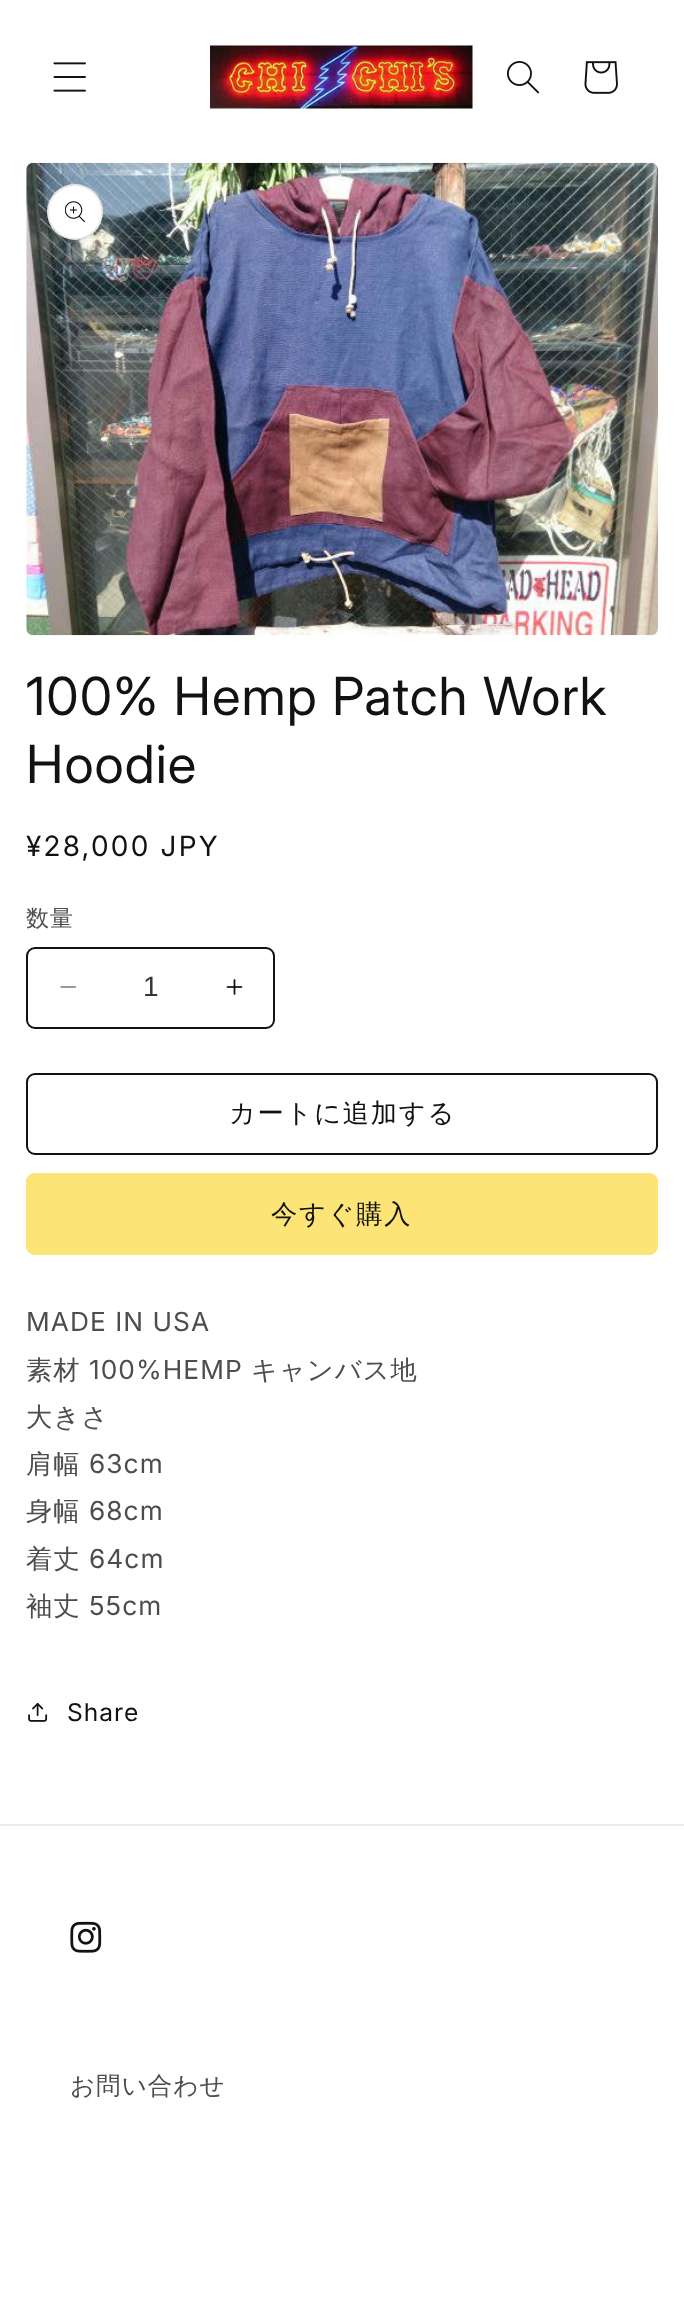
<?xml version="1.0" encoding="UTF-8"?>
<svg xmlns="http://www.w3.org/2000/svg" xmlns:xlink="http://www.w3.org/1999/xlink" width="684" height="2320">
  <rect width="100%" height="100%" fill="#ffffff" />
  <image x="53" y="62" width="33" height="30" xlink:href="image1.png" />
  <image x="210" y="45" width="263" height="64" xlink:href="image2.png" />
  <image x="507" y="61" width="32" height="33" xlink:href="image3.png" />
  <image x="584" y="61" width="34" height="33" xlink:href="image4.png" />
  <image x="26" y="162" width="632" height="474" xlink:href="image5.png" />
  <circle cx="75" cy="212" r="28" fill="#ffffff" />
  <circle cx="75" cy="212" r="27" fill="none" stroke="#121212" stroke-opacity="0.1" stroke-width="2" />
  <image x="65" y="201" width="20" height="22" xlink:href="image6.png" />
  <image x="60" y="986" width="16" height="2" xlink:href="image7.png" />
  <image x="226" y="979" width="17" height="16" xlink:href="image8.png" />
  <rect x="27" y="948" width="247" height="80" rx="8" fill="none" stroke="#121212" stroke-width="2" />
  <rect x="27" y="1074" width="630" height="80" rx="8" fill="none" stroke="#121212" stroke-width="2" />
  <rect x="26" y="1173" width="632" height="82" rx="9" fill="#fce477" />
  <rect x="27" y="1174" width="630" height="80" rx="8" fill="none" stroke="#fce477" stroke-width="2" />
  <image x="28" y="1703" width="20" height="19" xlink:href="image9.png" />
  <rect y="1824" width="684" height="2" fill="#ececec" />
  <image x="70" y="1921" width="32" height="32" xlink:href="image10.png" />
  <text x="26" y="715" style="font-family: Inter; font-size: 52.5px; letter-spacing: 1.05px; fill: #121212">100% Hemp Patch Work</text>
  <text x="26" y="783" style="font-family: Inter; font-size: 52.5px; letter-spacing: 1.05px; fill: #121212">Hoodie</text>
  <text x="26" y="856" style="font-family: 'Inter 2'; font-size: 28px; letter-spacing: 2.25px; fill: #121212">¥28,000 JPY</text>
  <text x="26" y="926" style="font-family: WenQuanYi Zen Hei; font-size: 23px; font-weight: 500; letter-spacing: 1px; fill: #4d4d4d">数量</text>
  <text x="143" y="996" style="font-family: Liberation Sans; font-size: 28px; fill: #363636">1</text>
  <text x="229" y="1122" style="font-family: WenQuanYi Zen Hei; font-size: 26.25px; font-weight: 500; letter-spacing: 1.75px; fill: #121212">カートに追加する</text>
  <text x="271" y="1223" style="font-family: WenQuanYi Zen Hei; font-size: 26.25px; font-weight: 500; letter-spacing: 1.75px; fill: #121212">今すぐ購入</text>
  <text x="26" y="1331" style="font-family: 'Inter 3'; font-size: 26.25px; letter-spacing: 1.05px; fill: #4d4d4d">MADE IN USA</text>
  <text x="26" y="1379" style="font-family: WenQuanYi Zen Hei; font-size: 26.25px; font-weight: 500; letter-spacing: 1.05px; fill: #4d4d4d">素材</text>
  <text x="89" y="1379" style="font-family: 'Inter 3'; font-size: 26.25px; letter-spacing: 1.05px; fill: #4d4d4d">100%HEMP</text>
  <text x="251" y="1379" style="font-family: WenQuanYi Zen Hei; font-size: 26.25px; font-weight: 500; letter-spacing: 1.05px; fill: #4d4d4d">キャンバス地</text>
  <text x="26" y="1426" style="font-family: WenQuanYi Zen Hei; font-size: 26.25px; font-weight: 500; letter-spacing: 1.05px; fill: #4d4d4d">大きさ</text>
  <text x="26" y="1473" style="font-family: WenQuanYi Zen Hei; font-size: 26.25px; font-weight: 500; letter-spacing: 1.05px; fill: #4d4d4d">肩幅</text>
  <text x="89" y="1473" style="font-family: 'Inter 3'; font-size: 26.25px; letter-spacing: 1.05px; fill: #4d4d4d">63cm</text>
  <text x="26" y="1520" style="font-family: WenQuanYi Zen Hei; font-size: 26.25px; font-weight: 500; letter-spacing: 1.05px; fill: #4d4d4d">身幅</text>
  <text x="89" y="1520" style="font-family: 'Inter 3'; font-size: 26.25px; letter-spacing: 1.05px; fill: #4d4d4d">68cm</text>
  <text x="26" y="1568" style="font-family: WenQuanYi Zen Hei; font-size: 26.25px; font-weight: 500; letter-spacing: 1.05px; fill: #4d4d4d">着丈</text>
  <text x="89" y="1568" style="font-family: 'Inter 3'; font-size: 26.25px; letter-spacing: 1.05px; fill: #4d4d4d">64cm</text>
  <text x="26" y="1615" style="font-family: WenQuanYi Zen Hei; font-size: 26.25px; font-weight: 500; letter-spacing: 1.05px; fill: #4d4d4d">袖丈</text>
  <text x="89" y="1615" style="font-family: 'Inter 3'; font-size: 26.25px; letter-spacing: 1.05px; fill: #4d4d4d">55cm</text>
  <text x="67" y="1721" style="font-family: 'Inter 3'; font-size: 24.5px; letter-spacing: 1.05px; fill: #121212">Share</text>
  <text x="70" y="2094" style="font-family: WenQuanYi Zen Hei; font-size: 24.5px; font-weight: 500; letter-spacing: 1.05px; fill: #4d4d4d">お問い合わせ</text>
</svg>
